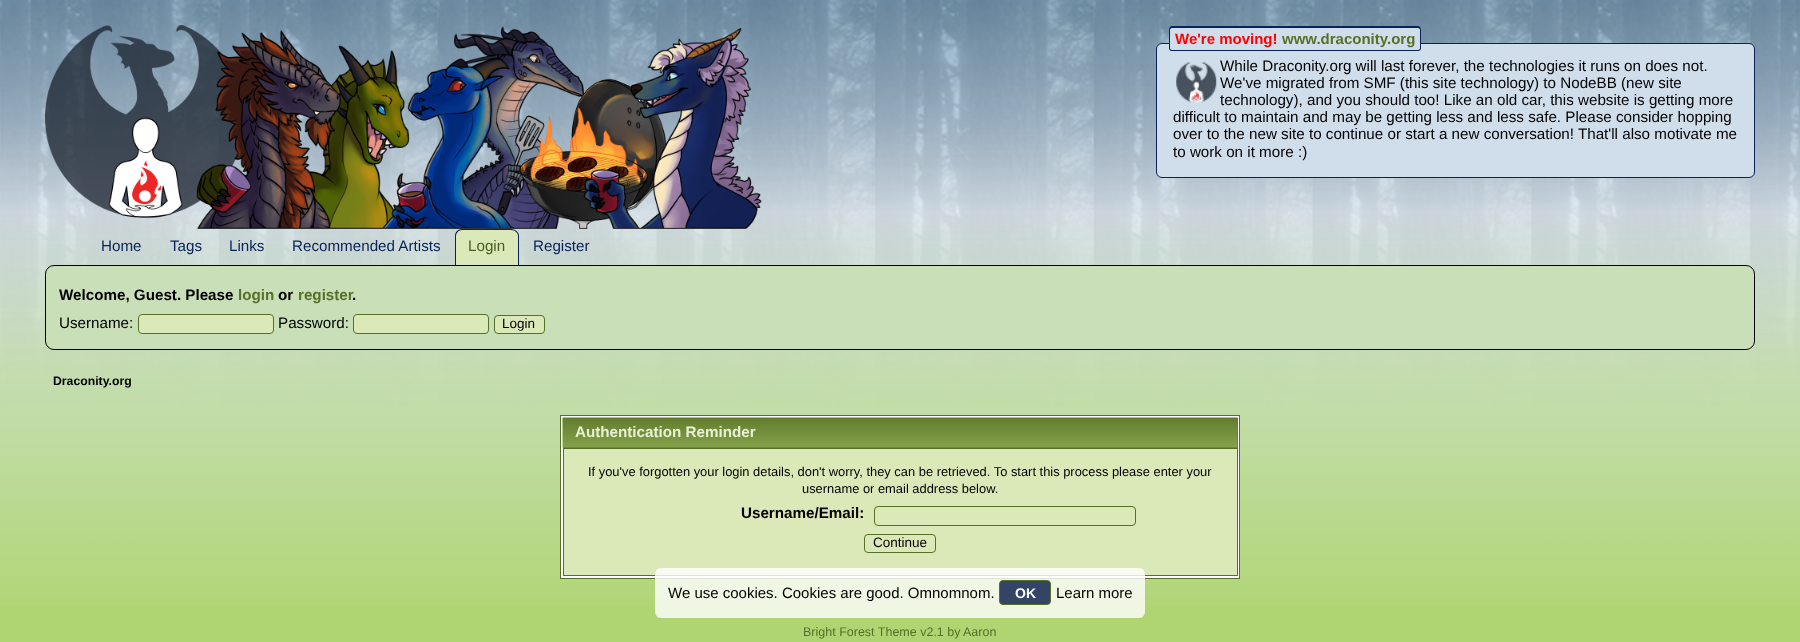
<?xml version="1.0" encoding="UTF-8"?>
<svg xmlns="http://www.w3.org/2000/svg" xmlns:xlink="http://www.w3.org/1999/xlink" width="1800" height="642">
  <rect width="100%" height="100%" fill="#afd572" />
  <image x="0" y="0" width="1800" height="605" xlink:href="image1.png" />
  <image x="45" y="25" width="717" height="204" xlink:href="image2.png" />
  <rect x="1156.5" y="43.5" width="598" height="134" rx="5.5" fill="#d0deeb" stroke="#07235a" />
  <path d="M 1173 26 h 110 v 25 h -110 c -2 0 -4 -2 -4 -4 v -17 c 0 -2 2 -4 4 -4 z" fill="#d0deeb" />
  <path d="M 1172 26 h 110 v 25 h -110 c -2 0 -3 -1 -3 -3 v -18 c 0 -2 1 -4 3 -4 z m 0 2 h 110 v 22 h -110 c -1 0 -2 -1 -2 -2 v -18 c 0 -1 1 -2 2 -2 z" fill="#07235a" fill-rule="evenodd" />
  <path d="M 1283 26 h 134 c 2 0 4 2 4 4 v 17 c 0 2 -2 4 -4 4 h -134 z" fill="#d0deeb" />
  <path d="M 1282 26 h 136 c 2 0 3 2 3 4 v 18 c 0 2 -1 3 -3 3 h -136 z m 0 2 h 136 c 1 0 2 1 2 2 v 18 c 0 1 -1 2 -2 2 h -136 z" fill="#07235a" fill-rule="evenodd" />
  <image x="1176" y="62" width="41" height="41" xlink:href="image3.png" />
  <path d="M 463 229 h 48 c 4.5 0 8 3.5 8 8 v 28 h -64 v -28 c 0 -4.5 3.5 -8 8 -8 z" fill="#dbe8b8" />
  <path d="M 462 229 h 49 c 4 0 8 3 8 7 v 29 h -64 v -29 c 0 -4 3 -7 7 -7 z m 0 1 h 49 c 4 0 7 3 7 6 v 29 h -62 v -29 c 0 -3 3 -6 6 -6 z" fill="#07235a" fill-rule="evenodd" />
  <rect x="45.5" y="265.5" width="1709" height="84" rx="8.5" fill="#c9dfb8" stroke="#000000" />
  <rect x="138.5" y="314.5" width="135" height="19" rx="3.5" fill="#dbe8b8" stroke="#577028" />
  <rect x="353.5" y="314.5" width="135" height="19" rx="3.5" fill="#dbe8b8" stroke="#577028" />
  <rect x="494.5" y="315.5" width="50" height="18" rx="3.5" fill="#dbe8b8" stroke="#577028" />
  <rect x="560.5" y="415.5" width="679" height="163" fill="#ffffff" stroke="#577028" />
  <rect x="563" y="418" width="675" height="30" fill="#577028" />
  <image x="562" y="417" width="676" height="31" xlink:href="image4.png" />
  <rect x="563.5" y="448.5" width="674" height="127" fill="#dbe8b8" stroke="#577028" />
  <rect x="874.5" y="506.5" width="261" height="19" rx="3.5" fill="none" stroke="#577028" />
  <rect x="864.5" y="534.5" width="71" height="18" rx="3.5" fill="none" stroke="#577028" />
  <rect x="655" y="568" width="490" height="50" rx="6" fill="#ffffff" fill-opacity="0.8" />
  <rect x="999.5" y="580.5" width="51" height="24" rx="3.5" fill="#334466" stroke="#577028" />
  <text x="1175" y="44" style="font-family: Liberation Sans; font-size: 15px; font-weight: bold; fill: #ff0000">We're moving!</text>
  <text x="1282" y="44" style="font-family: Liberation Sans; font-size: 15px; font-weight: bold; fill: #577028">www.draconity.org</text>
  <text x="1220" y="71" style="font-family: Liberation Sans; font-size: 15.2px; fill: #000000">While Draconity.org will last forever, the technologies it runs on does not.</text>
  <text x="1220" y="88" style="font-family: Liberation Sans; font-size: 15.2px; fill: #000000">We've migrated from SMF (this site technology) to NodeBB (new site</text>
  <text x="1220" y="105" style="font-family: Liberation Sans; font-size: 15.2px; fill: #000000">technology), and you should too! Like an old car, this website is getting more</text>
  <text x="1173" y="122" style="font-family: Liberation Sans; font-size: 15.2px; fill: #000000">difficult to maintain and may be getting less and less safe. Please consider hopping</text>
  <text x="1173" y="139" style="font-family: Liberation Sans; font-size: 15.2px; fill: #000000">over to the new site to continue or start a new conversation! That'll also motivate me</text>
  <text x="1173" y="157" style="font-family: Liberation Sans; font-size: 15.2px; fill: #000000">to work on it more :)</text>
  <text x="101" y="251" style="font-family: Liberation Sans; font-size: 15.2px; fill: #07235a">Home</text>
  <text x="170" y="251" style="font-family: Liberation Sans; font-size: 15.2px; fill: #07235a">Tags</text>
  <text x="229" y="251" style="font-family: Liberation Sans; font-size: 15.2px; fill: #07235a">Links</text>
  <text x="292" y="251" style="font-family: Liberation Sans; font-size: 15.2px; fill: #07235a">Recommended Artists</text>
  <text x="468" y="251" style="font-family: Liberation Sans; font-size: 15.2px; fill: #495e20">Login</text>
  <text x="533" y="251" style="font-family: Liberation Sans; font-size: 15.2px; fill: #07235a">Register</text>
  <text x="59" y="300" style="font-family: Liberation Sans; font-size: 15.2px; font-weight: bold; fill: #000000">Welcome, Guest. Please</text>
  <text x="238" y="300" style="font-family: Liberation Sans; font-size: 15.2px; font-weight: bold; fill: #577028">login</text>
  <text x="278" y="300" style="font-family: Liberation Sans; font-size: 15.2px; font-weight: bold; fill: #000000">or</text>
  <text x="298" y="300" style="font-family: Liberation Sans; font-size: 15.2px; font-weight: bold; fill: #577028">register</text>
  <text x="352" y="300" style="font-family: Liberation Sans; font-size: 15.2px; font-weight: bold; fill: #000000">.</text>
  <text x="59" y="328" style="font-family: Liberation Sans; font-size: 15.2px; fill: #000000">Username:</text>
  <text x="278" y="328" style="font-family: Liberation Sans; font-size: 15.2px; fill: #000000">Password:</text>
  <text x="502" y="328" style="font-family: Liberation Sans; font-size: 13.5px; fill: #000000">Login</text>
  <text x="53" y="385" style="font-family: Liberation Sans; font-size: 12.25px; font-weight: bold; fill: #000000">Draconity.org</text>
  <text x="575" y="437" style="font-family: Liberation Sans; font-size: 15.2px; font-weight: bold; fill: #e9f1d5">Authentication Reminder</text>
  <text x="588" y="476" style="font-family: Liberation Sans; font-size: 12.9px; fill: #000000">If you've forgotten your login details, don't worry, they can be retrieved. To start this process please enter your</text>
  <text x="802" y="493" style="font-family: Liberation Sans; font-size: 12.9px; fill: #000000">username or email address below.</text>
  <text x="741" y="518" style="font-family: Liberation Sans; font-size: 15.2px; font-weight: bold; fill: #000000">Username/Email:</text>
  <text x="873" y="547" style="font-family: Liberation Sans; font-size: 13.5px; fill: #000000">Continue</text>
  <text x="668" y="598" style="font-family: Liberation Sans; font-size: 15px; fill: #000000">We use cookies. Cookies are good. Omnomnom.</text>
  <text x="1015" y="598" style="font-family: Liberation Sans; font-size: 14px; font-weight: bold; fill: #ffffff">OK</text>
  <text x="1056" y="598" style="font-family: Liberation Sans; font-size: 15px; fill: #000000">Learn more</text>
  <text x="803" y="636" style="font-family: Liberation Sans; font-size: 12.5px; fill: #577028">Bright Forest Theme v2.1 by</text>
  <text x="963" y="636" style="font-family: Liberation Sans; font-size: 12.5px; fill: #577028">Aaron</text>
</svg>
